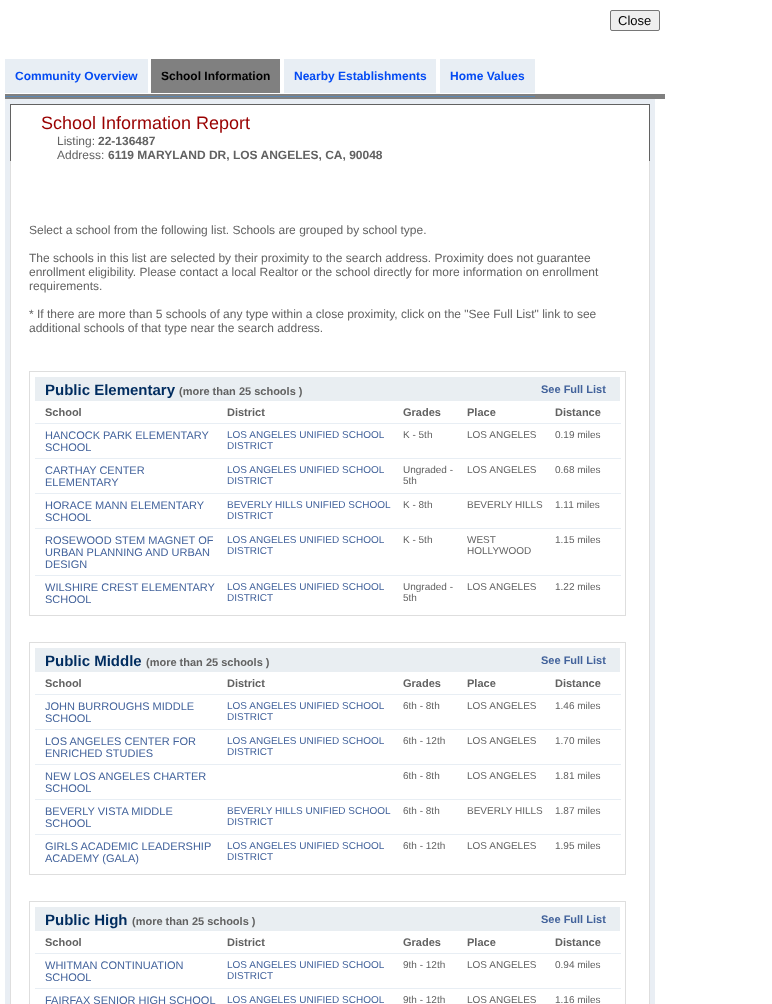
<?xml version="1.0" encoding="UTF-8"?>
<svg xmlns="http://www.w3.org/2000/svg" xmlns:xlink="http://www.w3.org/1999/xlink" width="772" height="1004">
  <rect width="100%" height="100%" fill="#ffffff" />
  <rect x="610.5" y="10.5" width="49" height="20" rx="1.5" fill="#efefef" stroke="#767676" />
  <rect x="5" y="94" width="660" height="5" fill="#808080" />
  <rect x="5" y="96" width="530" height="1" fill="#5c87b2" />
  <rect x="5" y="59" width="143" height="34" fill="#e8eef4" />
  <rect x="151" y="59" width="129" height="34" fill="#808080" />
  <rect x="284" y="59" width="152" height="34" fill="#e8eef4" />
  <rect x="440" y="59" width="95" height="34" fill="#e8eef4" />
  <rect x="5" y="99" width="650" height="905" fill="#e9eef4" />
  <rect x="11" y="105" width="638" height="899" fill="#ffffff" />
  <rect x="10" y="104" width="640" height="1" fill="#626262" />
  <rect x="649" y="104" width="1" height="58" fill="#626262" />
  <rect x="10" y="104" width="1" height="58" fill="#626262" />
  <rect x="649" y="161" width="1" height="843" fill="#dedede" />
  <rect x="10" y="161" width="1" height="843" fill="#dedede" />
  <rect x="29" y="371" width="597" height="1" fill="#dedede" />
  <rect x="625" y="371" width="1" height="245" fill="#dedede" />
  <rect x="29" y="615" width="597" height="1" fill="#dedede" />
  <rect x="29" y="371" width="1" height="245" fill="#dedede" />
  <rect x="35" y="377" width="585" height="24" fill="#e9eef2" />
  <rect x="35" y="423" width="586" height="1" fill="#e8eef4" />
  <rect x="35" y="458" width="586" height="1" fill="#e8eef4" />
  <rect x="35" y="493" width="586" height="1" fill="#e8eef4" />
  <rect x="35" y="528" width="586" height="1" fill="#e8eef4" />
  <rect x="35" y="575" width="586" height="1" fill="#e8eef4" />
  <rect x="29" y="642" width="597" height="1" fill="#dedede" />
  <rect x="625" y="642" width="1" height="233" fill="#dedede" />
  <rect x="29" y="874" width="597" height="1" fill="#dedede" />
  <rect x="29" y="642" width="1" height="233" fill="#dedede" />
  <rect x="35" y="648" width="585" height="24" fill="#e9eef2" />
  <rect x="35" y="694" width="586" height="1" fill="#e8eef4" />
  <rect x="35" y="729" width="586" height="1" fill="#e8eef4" />
  <rect x="35" y="764" width="586" height="1" fill="#e8eef4" />
  <rect x="35" y="799" width="586" height="1" fill="#e8eef4" />
  <rect x="35" y="834" width="586" height="1" fill="#e8eef4" />
  <rect x="29" y="901" width="597" height="1" fill="#dedede" />
  <rect x="625" y="901" width="1" height="103" fill="#dedede" />
  <rect x="29" y="901" width="1" height="103" fill="#dedede" />
  <rect x="35" y="907" width="585" height="24" fill="#e9eef2" />
  <rect x="35" y="953" width="586" height="1" fill="#e8eef4" />
  <rect x="35" y="988" width="586" height="1" fill="#e8eef4" />
  <text x="618" y="25" style="font-family: Liberation Sans; font-size: 13px; fill: #000000">Close</text>
  <text x="15" y="80" style="font-family: Liberation Sans; font-size: 12px; font-weight: bold; fill: #034af3">Community Overview</text>
  <text x="161" y="80" style="font-family: Liberation Sans; font-size: 12px; font-weight: bold; fill: #000000">School Information</text>
  <text x="294" y="80" style="font-family: Liberation Sans; font-size: 12px; font-weight: bold; fill: #034af3">Nearby Establishments</text>
  <text x="450" y="80" style="font-family: Liberation Sans; font-size: 12px; font-weight: bold; fill: #034af3">Home Values</text>
  <text x="41" y="129" style="font-family: Liberation Sans; font-size: 18px; fill: #990000">School Information Report</text>
  <text x="57" y="145" style="font-family: Liberation Sans; font-size: 12px; fill: #626262">Listing:</text>
  <text x="98" y="145" style="font-family: Liberation Sans; font-size: 12px; font-weight: bold; fill: #626262">22-136487</text>
  <text x="57" y="159" style="font-family: Liberation Sans; font-size: 12px; fill: #626262">Address:</text>
  <text x="108" y="159" style="font-family: Liberation Sans; font-size: 12px; font-weight: bold; fill: #626262">6119 MARYLAND DR, LOS ANGELES, CA, 90048</text>
  <text x="29" y="234" style="font-family: Liberation Sans; font-size: 12px; fill: #626262">Select a school from the following list. Schools are grouped by school type.</text>
  <text x="29" y="262" style="font-family: Liberation Sans; font-size: 12px; fill: #626262">The schools in this list are selected by their proximity to the search address. Proximity does not guarantee</text>
  <text x="29" y="276" style="font-family: Liberation Sans; font-size: 12px; fill: #626262">enrollment eligibility. Please contact a local Realtor or the school directly for more information on enrollment</text>
  <text x="29" y="290" style="font-family: Liberation Sans; font-size: 12px; fill: #626262">requirements.</text>
  <text x="29" y="318" style="font-family: Liberation Sans; font-size: 12px; fill: #626262">* If there are more than 5 schools of any type within a close proximity, click on the "See Full List" link to see</text>
  <text x="29" y="332" style="font-family: Liberation Sans; font-size: 12px; fill: #626262">additional schools of that type near the search address.</text>
  <text x="45" y="395" style="font-family: Liberation Sans; font-size: 15px; font-weight: bold; fill: #002c5f">Public Elementary</text>
  <text x="179" y="395" style="font-family: Liberation Sans; font-size: 11px; font-weight: bold; fill: #626262">(more than 25 schools )</text>
  <text x="541" y="393" style="font-family: Liberation Sans; font-size: 11px; font-weight: bold; fill: #42629b">See Full List</text>
  <text x="45" y="416" style="font-family: Liberation Sans; font-size: 11px; font-weight: bold; fill: #626262">School</text>
  <text x="227" y="416" style="font-family: Liberation Sans; font-size: 11px; font-weight: bold; fill: #626262">District</text>
  <text x="403" y="416" style="font-family: Liberation Sans; font-size: 11px; font-weight: bold; fill: #626262">Grades</text>
  <text x="467" y="416" style="font-family: Liberation Sans; font-size: 11px; font-weight: bold; fill: #626262">Place</text>
  <text x="555" y="416" style="font-family: Liberation Sans; font-size: 11px; font-weight: bold; fill: #626262">Distance</text>
  <text x="45" y="439" style="font-family: Liberation Sans; font-size: 11px; fill: #42629b">HANCOCK PARK ELEMENTARY</text>
  <text x="45" y="451" style="font-family: Liberation Sans; font-size: 11px; fill: #42629b">SCHOOL</text>
  <text x="227" y="438" style="font-family: Liberation Sans; font-size: 10px; fill: #42629b">LOS ANGELES UNIFIED SCHOOL</text>
  <text x="227" y="449" style="font-family: Liberation Sans; font-size: 10px; fill: #42629b">DISTRICT</text>
  <text x="403" y="438" style="font-family: Liberation Sans; font-size: 10px; fill: #626262">K - 5th</text>
  <text x="467" y="438" style="font-family: Liberation Sans; font-size: 10px; fill: #626262">LOS ANGELES</text>
  <text x="555" y="438" style="font-family: Liberation Sans; font-size: 10px; fill: #626262">0.19 miles</text>
  <text x="45" y="474" style="font-family: Liberation Sans; font-size: 11px; fill: #42629b">CARTHAY CENTER</text>
  <text x="45" y="486" style="font-family: Liberation Sans; font-size: 11px; fill: #42629b">ELEMENTARY</text>
  <text x="227" y="473" style="font-family: Liberation Sans; font-size: 10px; fill: #42629b">LOS ANGELES UNIFIED SCHOOL</text>
  <text x="227" y="484" style="font-family: Liberation Sans; font-size: 10px; fill: #42629b">DISTRICT</text>
  <text x="403" y="473" style="font-family: Liberation Sans; font-size: 10px; fill: #626262">Ungraded -</text>
  <text x="403" y="484" style="font-family: Liberation Sans; font-size: 10px; fill: #626262">5th</text>
  <text x="467" y="473" style="font-family: Liberation Sans; font-size: 10px; fill: #626262">LOS ANGELES</text>
  <text x="555" y="473" style="font-family: Liberation Sans; font-size: 10px; fill: #626262">0.68 miles</text>
  <text x="45" y="509" style="font-family: Liberation Sans; font-size: 11px; fill: #42629b">HORACE MANN ELEMENTARY</text>
  <text x="45" y="521" style="font-family: Liberation Sans; font-size: 11px; fill: #42629b">SCHOOL</text>
  <text x="227" y="508" style="font-family: Liberation Sans; font-size: 10px; fill: #42629b">BEVERLY HILLS UNIFIED SCHOOL</text>
  <text x="227" y="519" style="font-family: Liberation Sans; font-size: 10px; fill: #42629b">DISTRICT</text>
  <text x="403" y="508" style="font-family: Liberation Sans; font-size: 10px; fill: #626262">K - 8th</text>
  <text x="467" y="508" style="font-family: Liberation Sans; font-size: 10px; fill: #626262">BEVERLY HILLS</text>
  <text x="555" y="508" style="font-family: Liberation Sans; font-size: 10px; fill: #626262">1.11 miles</text>
  <text x="45" y="544" style="font-family: Liberation Sans; font-size: 11px; fill: #42629b">ROSEWOOD STEM MAGNET OF</text>
  <text x="45" y="556" style="font-family: Liberation Sans; font-size: 11px; fill: #42629b">URBAN PLANNING AND URBAN</text>
  <text x="45" y="568" style="font-family: Liberation Sans; font-size: 11px; fill: #42629b">DESIGN</text>
  <text x="227" y="543" style="font-family: Liberation Sans; font-size: 10px; fill: #42629b">LOS ANGELES UNIFIED SCHOOL</text>
  <text x="227" y="554" style="font-family: Liberation Sans; font-size: 10px; fill: #42629b">DISTRICT</text>
  <text x="403" y="543" style="font-family: Liberation Sans; font-size: 10px; fill: #626262">K - 5th</text>
  <text x="467" y="543" style="font-family: Liberation Sans; font-size: 10px; fill: #626262">WEST</text>
  <text x="467" y="554" style="font-family: Liberation Sans; font-size: 10px; fill: #626262">HOLLYWOOD</text>
  <text x="555" y="543" style="font-family: Liberation Sans; font-size: 10px; fill: #626262">1.15 miles</text>
  <text x="45" y="591" style="font-family: Liberation Sans; font-size: 11px; fill: #42629b">WILSHIRE CREST ELEMENTARY</text>
  <text x="45" y="603" style="font-family: Liberation Sans; font-size: 11px; fill: #42629b">SCHOOL</text>
  <text x="227" y="590" style="font-family: Liberation Sans; font-size: 10px; fill: #42629b">LOS ANGELES UNIFIED SCHOOL</text>
  <text x="227" y="601" style="font-family: Liberation Sans; font-size: 10px; fill: #42629b">DISTRICT</text>
  <text x="403" y="590" style="font-family: Liberation Sans; font-size: 10px; fill: #626262">Ungraded -</text>
  <text x="403" y="601" style="font-family: Liberation Sans; font-size: 10px; fill: #626262">5th</text>
  <text x="467" y="590" style="font-family: Liberation Sans; font-size: 10px; fill: #626262">LOS ANGELES</text>
  <text x="555" y="590" style="font-family: Liberation Sans; font-size: 10px; fill: #626262">1.22 miles</text>
  <text x="45" y="666" style="font-family: Liberation Sans; font-size: 15px; font-weight: bold; fill: #002c5f">Public Middle</text>
  <text x="146" y="666" style="font-family: Liberation Sans; font-size: 11px; font-weight: bold; fill: #626262">(more than 25 schools )</text>
  <text x="541" y="664" style="font-family: Liberation Sans; font-size: 11px; font-weight: bold; fill: #42629b">See Full List</text>
  <text x="45" y="687" style="font-family: Liberation Sans; font-size: 11px; font-weight: bold; fill: #626262">School</text>
  <text x="227" y="687" style="font-family: Liberation Sans; font-size: 11px; font-weight: bold; fill: #626262">District</text>
  <text x="403" y="687" style="font-family: Liberation Sans; font-size: 11px; font-weight: bold; fill: #626262">Grades</text>
  <text x="467" y="687" style="font-family: Liberation Sans; font-size: 11px; font-weight: bold; fill: #626262">Place</text>
  <text x="555" y="687" style="font-family: Liberation Sans; font-size: 11px; font-weight: bold; fill: #626262">Distance</text>
  <text x="45" y="710" style="font-family: Liberation Sans; font-size: 11px; fill: #42629b">JOHN BURROUGHS MIDDLE</text>
  <text x="45" y="722" style="font-family: Liberation Sans; font-size: 11px; fill: #42629b">SCHOOL</text>
  <text x="227" y="709" style="font-family: Liberation Sans; font-size: 10px; fill: #42629b">LOS ANGELES UNIFIED SCHOOL</text>
  <text x="227" y="720" style="font-family: Liberation Sans; font-size: 10px; fill: #42629b">DISTRICT</text>
  <text x="403" y="709" style="font-family: Liberation Sans; font-size: 10px; fill: #626262">6th - 8th</text>
  <text x="467" y="709" style="font-family: Liberation Sans; font-size: 10px; fill: #626262">LOS ANGELES</text>
  <text x="555" y="709" style="font-family: Liberation Sans; font-size: 10px; fill: #626262">1.46 miles</text>
  <text x="45" y="745" style="font-family: Liberation Sans; font-size: 11px; fill: #42629b">LOS ANGELES CENTER FOR</text>
  <text x="45" y="757" style="font-family: Liberation Sans; font-size: 11px; fill: #42629b">ENRICHED STUDIES</text>
  <text x="227" y="744" style="font-family: Liberation Sans; font-size: 10px; fill: #42629b">LOS ANGELES UNIFIED SCHOOL</text>
  <text x="227" y="755" style="font-family: Liberation Sans; font-size: 10px; fill: #42629b">DISTRICT</text>
  <text x="403" y="744" style="font-family: Liberation Sans; font-size: 10px; fill: #626262">6th - 12th</text>
  <text x="467" y="744" style="font-family: Liberation Sans; font-size: 10px; fill: #626262">LOS ANGELES</text>
  <text x="555" y="744" style="font-family: Liberation Sans; font-size: 10px; fill: #626262">1.70 miles</text>
  <text x="45" y="780" style="font-family: Liberation Sans; font-size: 11px; fill: #42629b">NEW LOS ANGELES CHARTER</text>
  <text x="45" y="792" style="font-family: Liberation Sans; font-size: 11px; fill: #42629b">SCHOOL</text>
  <text x="403" y="779" style="font-family: Liberation Sans; font-size: 10px; fill: #626262">6th - 8th</text>
  <text x="467" y="779" style="font-family: Liberation Sans; font-size: 10px; fill: #626262">LOS ANGELES</text>
  <text x="555" y="779" style="font-family: Liberation Sans; font-size: 10px; fill: #626262">1.81 miles</text>
  <text x="45" y="815" style="font-family: Liberation Sans; font-size: 11px; fill: #42629b">BEVERLY VISTA MIDDLE</text>
  <text x="45" y="827" style="font-family: Liberation Sans; font-size: 11px; fill: #42629b">SCHOOL</text>
  <text x="227" y="814" style="font-family: Liberation Sans; font-size: 10px; fill: #42629b">BEVERLY HILLS UNIFIED SCHOOL</text>
  <text x="227" y="825" style="font-family: Liberation Sans; font-size: 10px; fill: #42629b">DISTRICT</text>
  <text x="403" y="814" style="font-family: Liberation Sans; font-size: 10px; fill: #626262">6th - 8th</text>
  <text x="467" y="814" style="font-family: Liberation Sans; font-size: 10px; fill: #626262">BEVERLY HILLS</text>
  <text x="555" y="814" style="font-family: Liberation Sans; font-size: 10px; fill: #626262">1.87 miles</text>
  <text x="45" y="850" style="font-family: Liberation Sans; font-size: 11px; fill: #42629b">GIRLS ACADEMIC LEADERSHIP</text>
  <text x="45" y="862" style="font-family: Liberation Sans; font-size: 11px; fill: #42629b">ACADEMY (GALA)</text>
  <text x="227" y="849" style="font-family: Liberation Sans; font-size: 10px; fill: #42629b">LOS ANGELES UNIFIED SCHOOL</text>
  <text x="227" y="860" style="font-family: Liberation Sans; font-size: 10px; fill: #42629b">DISTRICT</text>
  <text x="403" y="849" style="font-family: Liberation Sans; font-size: 10px; fill: #626262">6th - 12th</text>
  <text x="467" y="849" style="font-family: Liberation Sans; font-size: 10px; fill: #626262">LOS ANGELES</text>
  <text x="555" y="849" style="font-family: Liberation Sans; font-size: 10px; fill: #626262">1.95 miles</text>
  <text x="45" y="925" style="font-family: Liberation Sans; font-size: 15px; font-weight: bold; fill: #002c5f">Public High</text>
  <text x="132" y="925" style="font-family: Liberation Sans; font-size: 11px; font-weight: bold; fill: #626262">(more than 25 schools )</text>
  <text x="541" y="923" style="font-family: Liberation Sans; font-size: 11px; font-weight: bold; fill: #42629b">See Full List</text>
  <text x="45" y="946" style="font-family: Liberation Sans; font-size: 11px; font-weight: bold; fill: #626262">School</text>
  <text x="227" y="946" style="font-family: Liberation Sans; font-size: 11px; font-weight: bold; fill: #626262">District</text>
  <text x="403" y="946" style="font-family: Liberation Sans; font-size: 11px; font-weight: bold; fill: #626262">Grades</text>
  <text x="467" y="946" style="font-family: Liberation Sans; font-size: 11px; font-weight: bold; fill: #626262">Place</text>
  <text x="555" y="946" style="font-family: Liberation Sans; font-size: 11px; font-weight: bold; fill: #626262">Distance</text>
  <text x="45" y="969" style="font-family: Liberation Sans; font-size: 11px; fill: #42629b">WHITMAN CONTINUATION</text>
  <text x="45" y="981" style="font-family: Liberation Sans; font-size: 11px; fill: #42629b">SCHOOL</text>
  <text x="227" y="968" style="font-family: Liberation Sans; font-size: 10px; fill: #42629b">LOS ANGELES UNIFIED SCHOOL</text>
  <text x="227" y="979" style="font-family: Liberation Sans; font-size: 10px; fill: #42629b">DISTRICT</text>
  <text x="403" y="968" style="font-family: Liberation Sans; font-size: 10px; fill: #626262">9th - 12th</text>
  <text x="467" y="968" style="font-family: Liberation Sans; font-size: 10px; fill: #626262">LOS ANGELES</text>
  <text x="555" y="968" style="font-family: Liberation Sans; font-size: 10px; fill: #626262">0.94 miles</text>
  <text x="45" y="1004" style="font-family: Liberation Sans; font-size: 11px; fill: #42629b">FAIRFAX SENIOR HIGH SCHOOL</text>
  <text x="227" y="1003" style="font-family: Liberation Sans; font-size: 10px; fill: #42629b">LOS ANGELES UNIFIED SCHOOL</text>
  <text x="403" y="1003" style="font-family: Liberation Sans; font-size: 10px; fill: #626262">9th - 12th</text>
  <text x="467" y="1003" style="font-family: Liberation Sans; font-size: 10px; fill: #626262">LOS ANGELES</text>
  <text x="555" y="1003" style="font-family: Liberation Sans; font-size: 10px; fill: #626262">1.16 miles</text>
</svg>
